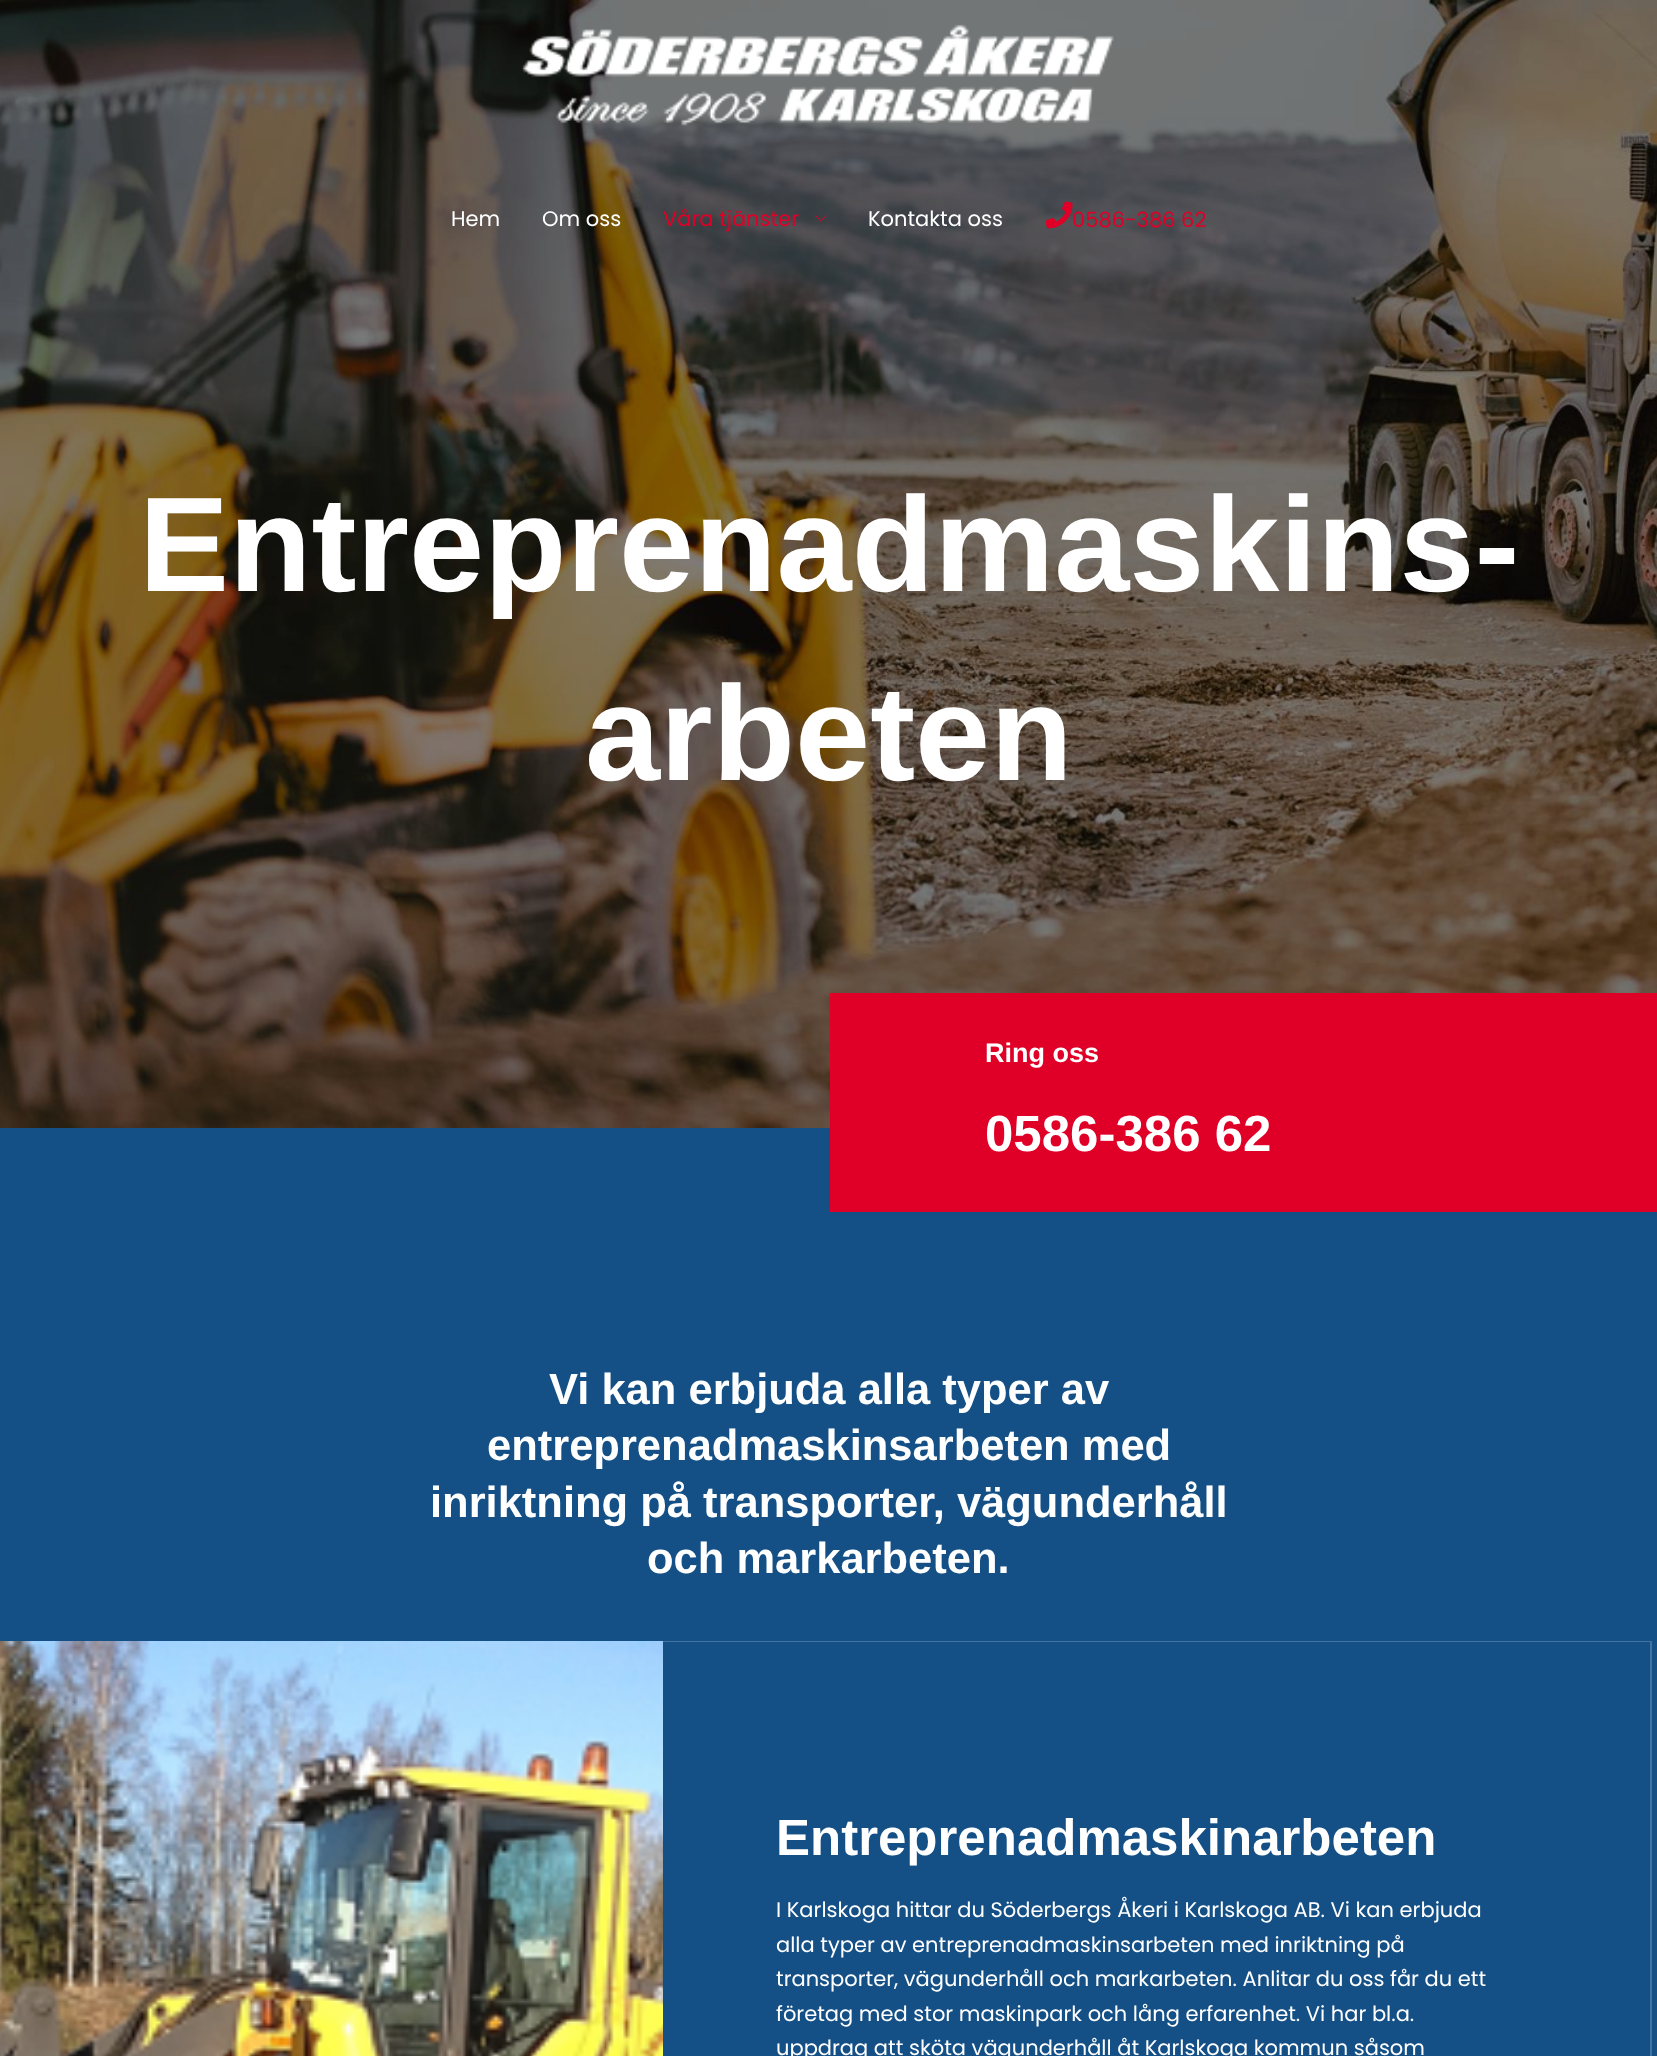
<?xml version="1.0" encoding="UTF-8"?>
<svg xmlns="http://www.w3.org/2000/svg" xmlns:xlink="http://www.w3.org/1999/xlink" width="1657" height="2056">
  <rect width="100%" height="100%" fill="#145086" />
  <image x="0" y="0" width="1657" height="1128" xlink:href="image4.png" />
  <image x="522" y="24" width="592" height="102" xlink:href="image1.png" />
  <image x="815" y="215" width="12" height="7" xlink:href="image2.png" />
  <image x="1045" y="201" width="28" height="28" xlink:href="image3.png" />
  <rect x="830" y="993" width="827" height="219" fill="#e00027" />
  <image x="0" y="1641" width="663" height="415" xlink:href="image5.png" />
  <path d="M 663 1641 h 989 l -2 1 h -987 z" fill="#43739e" />
  <path d="M 1652 1641 v 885 l -2 -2 v -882 z" fill="#ffffff" fill-opacity="0.2" />
  <text x="451" y="226" style="font-family: Poppins; font-size: 21px; fill: #ffffff">Hem</text>
  <text x="542" y="226" style="font-family: Poppins; font-size: 21px; fill: #ffffff">Om oss</text>
  <text x="663" y="226" style="font-family: Poppins; font-size: 21px; fill: #e00027">Våra tjänster</text>
  <text x="868" y="226" style="font-family: Poppins; font-size: 21px; fill: #ffffff">Kontakta oss</text>
  <text x="1072" y="227" style="font-family: Poppins; font-size: 21px; fill: #e00027">0586-386 62</text>
  <text x="139" y="591" style="font-family: Liberation Sans; font-size: 135px; font-weight: bold; fill: #ffffff">Entreprenadmaskins-</text>
  <text x="585" y="780" style="font-family: Liberation Sans; font-size: 135px; font-weight: bold; fill: #ffffff">arbeten</text>
  <text x="985" y="1062" style="font-family: Liberation Sans; font-size: 27px; font-weight: bold; fill: #ffffff">Ring oss</text>
  <text x="985" y="1151" style="font-family: Liberation Sans; font-size: 51px; font-weight: bold; fill: #ffffff">0586-386 62</text>
  <text x="549" y="1404" style="font-family: Liberation Sans; font-size: 43.5px; font-weight: bold; fill: #ffffff">Vi kan erbjuda alla typer av</text>
  <text x="487" y="1460" style="font-family: Liberation Sans; font-size: 43.5px; font-weight: bold; fill: #ffffff">entreprenadmaskinsarbeten med</text>
  <text x="430" y="1517" style="font-family: Liberation Sans; font-size: 43.5px; font-weight: bold; fill: #ffffff">inriktning på transporter, vägunderhåll</text>
  <text x="647" y="1573" style="font-family: Liberation Sans; font-size: 43.5px; font-weight: bold; fill: #ffffff">och markarbeten.</text>
  <text x="776" y="1855" style="font-family: Liberation Sans; font-size: 51px; font-weight: bold; fill: #ffffff">Entreprenadmaskinarbeten</text>
  <text x="776" y="1917" style="font-family: Poppins; font-size: 21px; fill: #ffffff">I Karlskoga hittar du Söderbergs Åkeri i Karlskoga AB. Vi kan erbjuda</text>
  <text x="776" y="1952" style="font-family: Poppins; font-size: 21px; fill: #ffffff">alla typer av entreprenadmaskinsarbeten med inriktning på</text>
  <text x="776" y="1986" style="font-family: Poppins; font-size: 21px; fill: #ffffff">transporter, vägunderhåll och markarbeten. Anlitar du oss får du ett</text>
  <text x="776" y="2021" style="font-family: Poppins; font-size: 21px; fill: #ffffff">företag med stor maskinpark och lång erfarenhet. Vi har bl.a.</text>
  <text x="776" y="2055" style="font-family: Poppins; font-size: 21px; fill: #ffffff">uppdrag att sköta vägunderhåll åt Karlskoga kommun såsom</text>
</svg>
